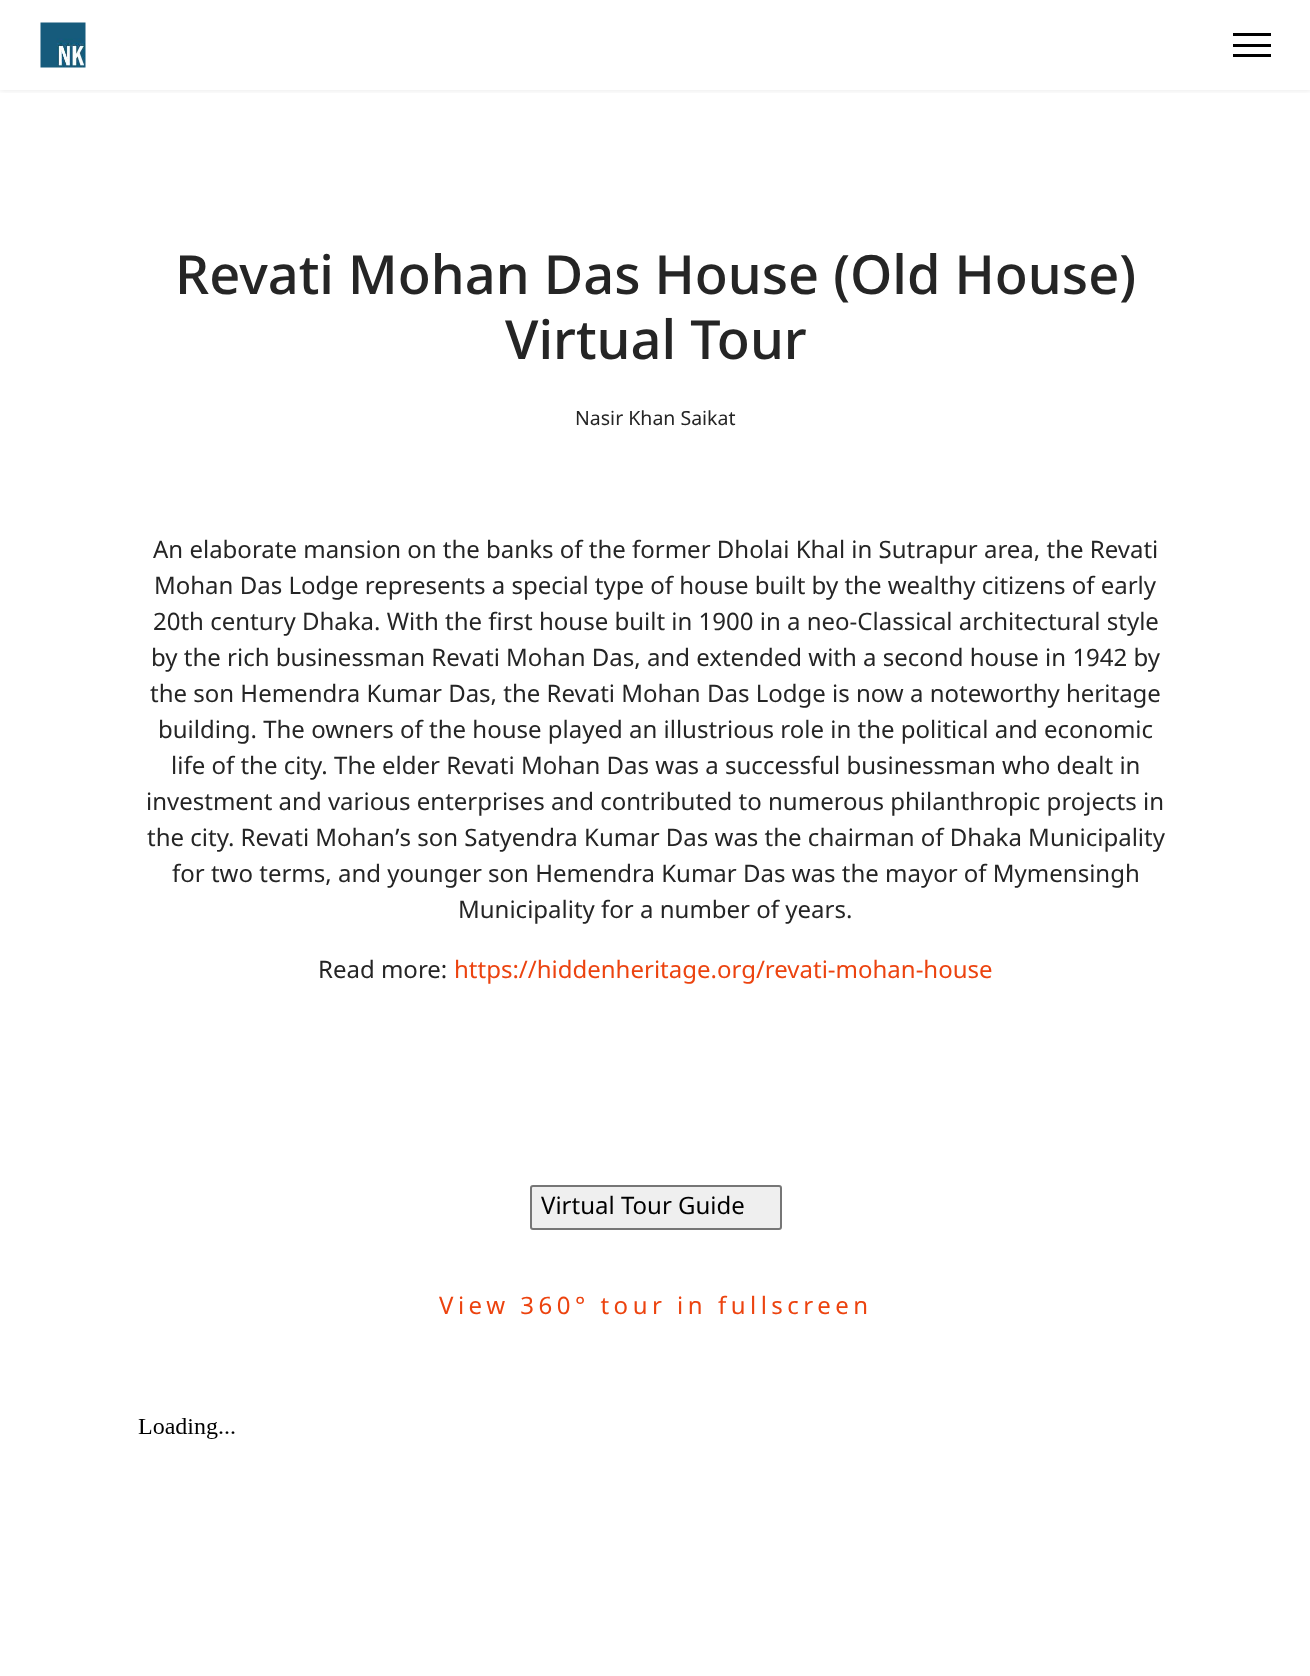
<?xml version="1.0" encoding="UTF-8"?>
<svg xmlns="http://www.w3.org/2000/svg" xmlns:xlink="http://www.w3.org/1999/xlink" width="1310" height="1676">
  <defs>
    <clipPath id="clip1"><rect x="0" y="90" width="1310" height="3" /></clipPath>
  </defs>
  <rect width="100%" height="100%" fill="#ffffff" />
  <g clip-path="url(#clip1)">
    <rect width="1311" height="90" fill="#000000" fill-opacity="0.1" filter="blur(3px)" />
  </g>
  <image x="40" y="22" width="46" height="46" xlink:href="image1.png" />
  <rect x="1233" y="33" width="38" height="3" fill="#000000" />
  <rect x="1233" y="44" width="38" height="3" fill="#000000" />
  <rect x="1233" y="54" width="38" height="3" fill="#000000" />
  <rect x="531" y="1186" width="250" height="43" rx="2" fill="#efefef" stroke="#767676" stroke-width="2" />
  <image x="138" y="1418" width="97" height="21" xlink:href="image2.png" />
  <text x="175" y="294" style="font-family: Noto Sans Bengali; font-size: 54px; font-weight: 500; fill: #252525">Revati Mohan Das House (Old House)</text>
  <text x="505" y="359" style="font-family: Noto Sans Bengali; font-size: 54px; font-weight: 500; fill: #252525">Virtual Tour</text>
  <text x="575" y="425" style="font-family: Noto Sans Bengali; font-size: 19.5px; fill: #252525">Nasir Khan Saikat</text>
  <text x="153" y="558" style="font-family: Noto Sans Bengali; font-size: 24px; fill: #252525">An elaborate mansion on the banks of the former Dholai Khal in Sutrapur area, the Revati</text>
  <text x="154" y="594" style="font-family: Noto Sans Bengali; font-size: 24px; fill: #252525">Mohan Das Lodge represents a special type of house built by the wealthy citizens of early</text>
  <text x="153" y="630" style="font-family: Noto Sans Bengali; font-size: 24px; fill: #252525">20th century Dhaka. With the first house built in 1900 in a neo-Classical architectural style</text>
  <text x="151" y="666" style="font-family: Noto Sans Bengali; font-size: 24px; fill: #252525">by the rich businessman Revati Mohan Das, and extended with a second house in 1942 by</text>
  <text x="150" y="702" style="font-family: Noto Sans Bengali; font-size: 24px; fill: #252525">the son Hemendra Kumar Das, the Revati Mohan Das Lodge is now a noteworthy heritage</text>
  <text x="158" y="738" style="font-family: Noto Sans Bengali; font-size: 24px; fill: #252525">building. The owners of the house played an illustrious role in the political and economic</text>
  <text x="171" y="774" style="font-family: Noto Sans Bengali; font-size: 24px; fill: #252525">life of the city. The elder Revati Mohan Das was a successful businessman who dealt in</text>
  <text x="146" y="810" style="font-family: Noto Sans Bengali; font-size: 24px; fill: #252525">investment and various enterprises and contributed to numerous philanthropic projects in</text>
  <text x="147" y="846" style="font-family: Noto Sans Bengali; font-size: 24px; fill: #252525">the city. Revati Mohan’s son Satyendra Kumar Das was the chairman of Dhaka Municipality</text>
  <text x="172" y="882" style="font-family: Noto Sans Bengali; font-size: 24px; fill: #252525">for two terms, and younger son Hemendra Kumar Das was the mayor of Mymensingh</text>
  <text x="458" y="918" style="font-family: Noto Sans Bengali; font-size: 24px; fill: #252525">Municipality for a number of years.</text>
  <text x="318" y="978" style="font-family: Noto Sans Bengali; font-size: 24px; fill: #252525">Read more:</text>
  <text x="454" y="978" style="font-family: Noto Sans Bengali; font-size: 24px; fill: #ec430f">https://hiddenheritage.org/revati-mohan-house</text>
  <text x="541" y="1214" style="font-family: Noto Sans Bengali; font-size: 24px; fill: #000000">Virtual Tour Guide</text>
  <text x="439" y="1314" style="font-family: Noto Sans Bengali; font-size: 24px; letter-spacing: 4.5px; fill: #ec430f">View 360° tour in fullscreen</text>
</svg>
